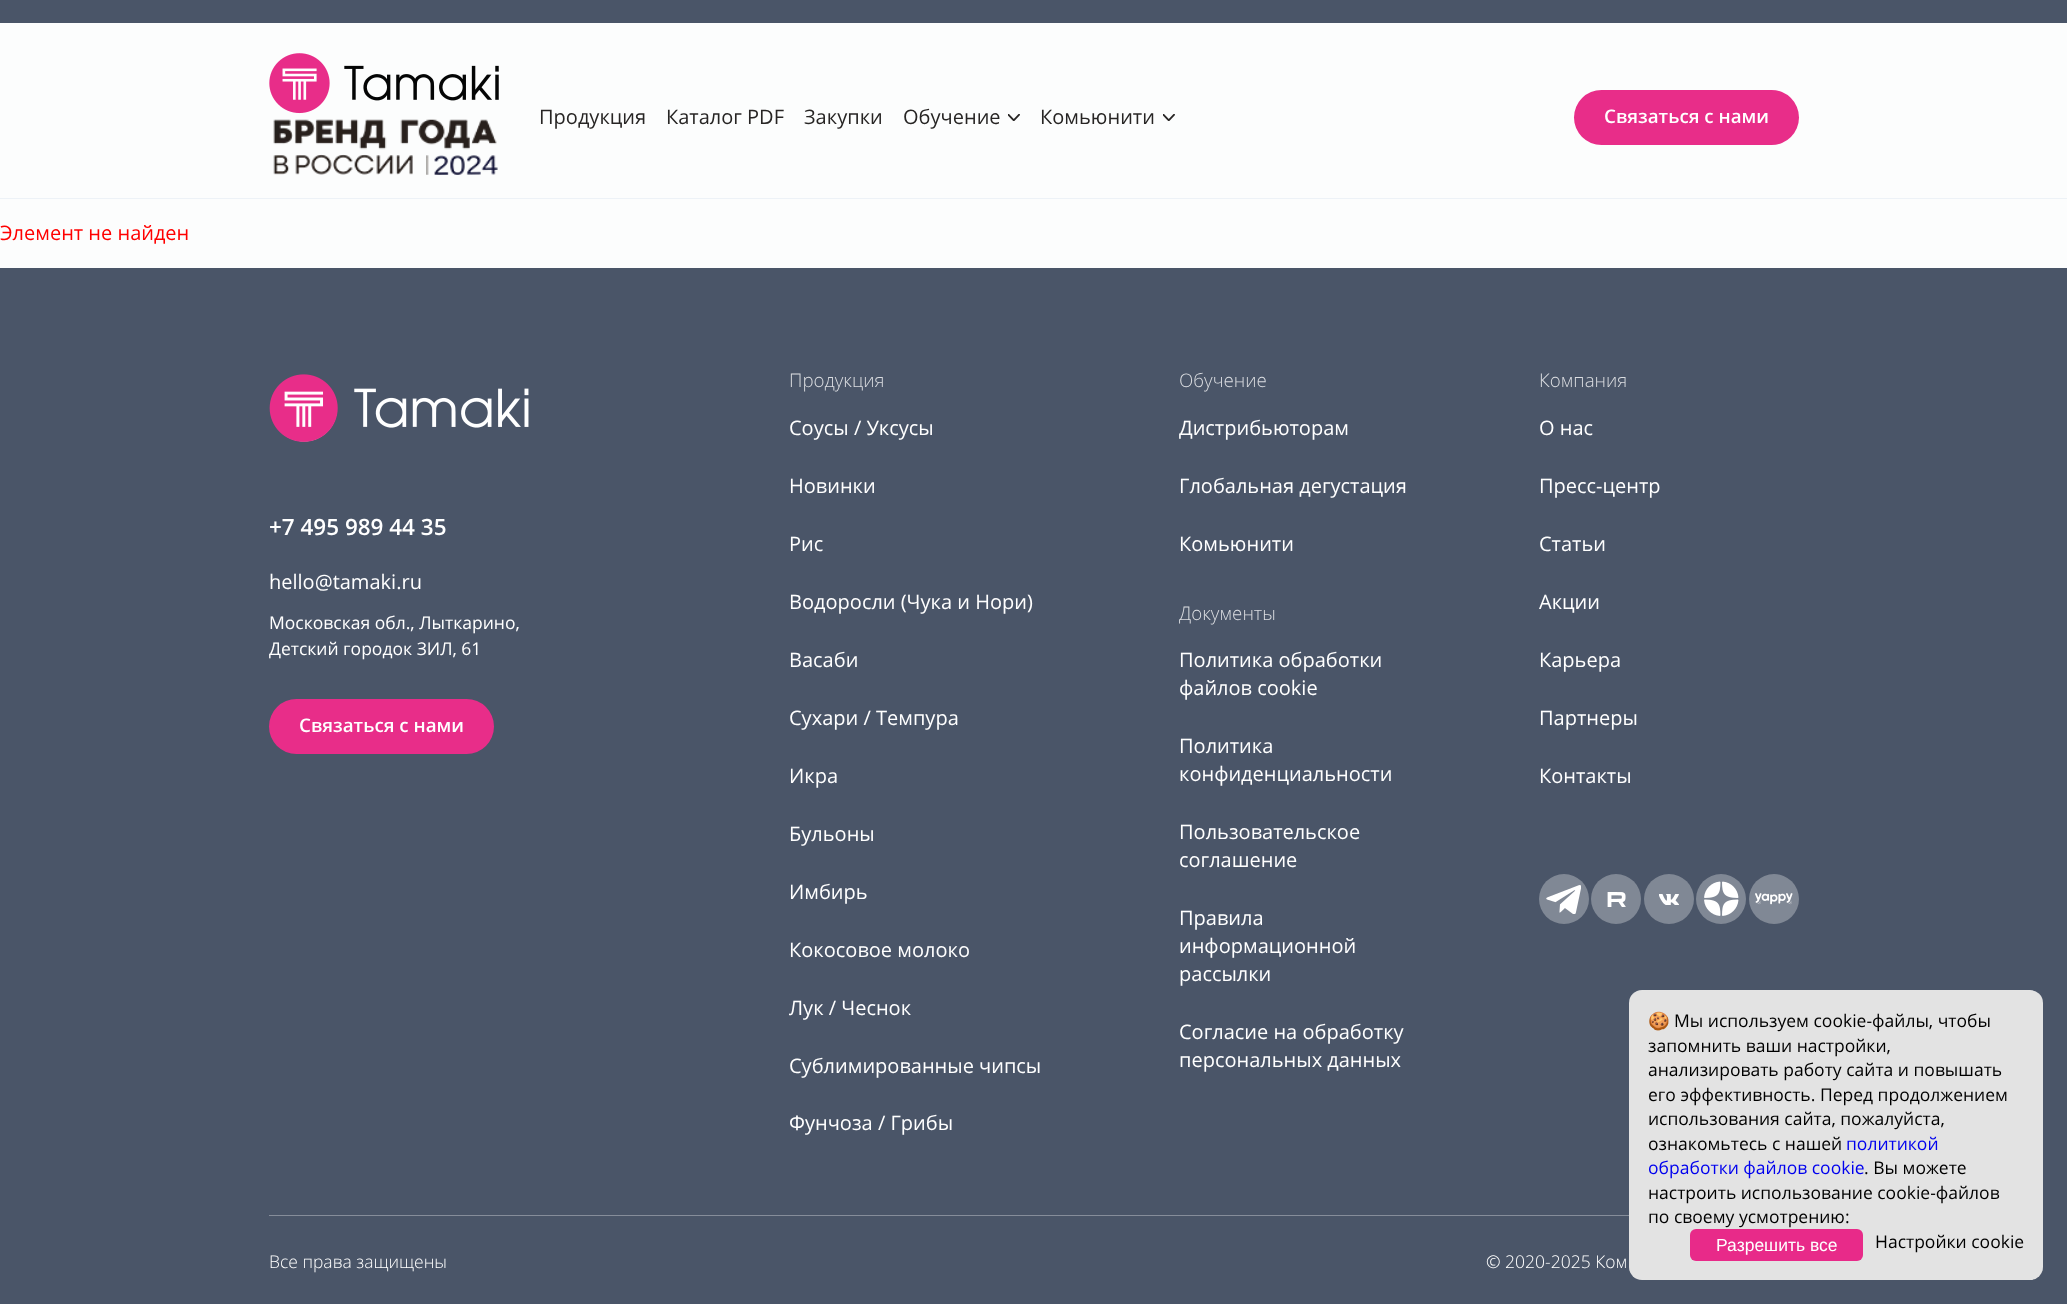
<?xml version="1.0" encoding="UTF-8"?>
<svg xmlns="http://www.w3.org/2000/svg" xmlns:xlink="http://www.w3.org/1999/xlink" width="2067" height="1304">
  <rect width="100%" height="100%" fill="#fcfdfd" />
  <rect width="2067" height="23" fill="#4a5568" />
  <rect y="198" width="2067" height="1" fill="#edf2f7" />
  <image x="269" y="53" width="230" height="61" xlink:href="image1.png" />
  <image x="273" y="119" width="225" height="56" xlink:href="image2.png" />
  <image x="1008" y="114" width="12" height="7" xlink:href="image3.png" />
  <image x="1163" y="114" width="12" height="7" xlink:href="image3.png" />
  <rect x="1574" y="90" width="225" height="55" rx="27.5" fill="#e82d89" />
  <rect y="268" width="2067" height="1036" fill="#4a5568" />
  <image x="269" y="374" width="260" height="68" xlink:href="image4.png" />
  <rect x="269" y="699" width="225" height="55" rx="27.5" fill="#e82d89" />
  <circle cx="1564" cy="899" r="25" fill="#808895" />
  <image x="1546" y="885" width="35" height="29" xlink:href="image5.png" />
  <circle cx="1616" cy="899" r="25" fill="#808895" />
  <image x="1607" y="892" width="19" height="15" xlink:href="image6.png" />
  <circle cx="1669" cy="899" r="25" fill="#808895" />
  <image x="1659" y="894" width="20" height="11" xlink:href="image7.png" />
  <circle cx="1721" cy="899" r="25" fill="#808895" />
  <image x="1704" y="881" width="35" height="35" xlink:href="image8.png" />
  <circle cx="1774" cy="899" r="25" fill="#808895" />
  <image x="1755" y="893" width="38" height="12" xlink:href="image9.png" />
  <rect x="269" y="1215" width="1360" height="1" fill="#868d9a" />
  <rect x="1629" y="990" width="414" height="290" rx="13" fill="#e3e3e3" />
  <rect x="1690" y="1229" width="173" height="32" rx="6" fill="#e82a89" />
  <text x="539" y="124" style="font-family: Open Sans; font-size: 20px; fill: #272524">Продукция</text>
  <text x="666" y="124" style="font-family: Open Sans; font-size: 20px; fill: #272524">Каталог PDF</text>
  <text x="804" y="124" style="font-family: Open Sans; font-size: 20px; fill: #272524">Закупки</text>
  <text x="903" y="124" style="font-family: Open Sans; font-size: 20px; fill: #272524">Обучение</text>
  <text x="1040" y="124" style="font-family: Open Sans; font-size: 20px; fill: #272524">Комьюнити</text>
  <text x="1604" y="123" style="font-family: Open Sans; font-size: 18.75px; font-weight: 600; fill: #ffffff">Связаться с нами</text>
  <text x="0" y="240" style="font-family: Open Sans; font-size: 20px; fill: #ff0000">Элемент не найден</text>
  <text x="269" y="535" style="font-family: Open Sans; font-size: 22.5px; font-weight: 600; fill: #ffffff">+7 495 989 44 35</text>
  <text x="269" y="589" style="font-family: Open Sans; font-size: 20px; fill: #ffffff">hello@tamaki.ru</text>
  <text x="269" y="629" style="font-family: Open Sans; font-size: 17.5px; fill: #ffffff">Московская обл., Лыткарино,</text>
  <text x="269" y="655" style="font-family: Open Sans; font-size: 17.5px; fill: #ffffff">Детский городок ЗИЛ, 61</text>
  <text x="299" y="732" style="font-family: Open Sans; font-size: 18.75px; font-weight: 600; fill: #ffffff">Связаться с нами</text>
  <text x="789" y="387" style="font-family: Open Sans; font-size: 18.75px; font-weight: 300; fill: #dbdde1">Продукция</text>
  <text x="789" y="435" style="font-family: Open Sans; font-size: 20px; fill: #ffffff">Соусы / Уксусы</text>
  <text x="789" y="493" style="font-family: Open Sans; font-size: 20px; fill: #ffffff">Новинки</text>
  <text x="789" y="551" style="font-family: Open Sans; font-size: 20px; fill: #ffffff">Рис</text>
  <text x="789" y="609" style="font-family: Open Sans; font-size: 20px; fill: #ffffff">Водоросли (Чука и Нори)</text>
  <text x="789" y="667" style="font-family: Open Sans; font-size: 20px; fill: #ffffff">Васаби</text>
  <text x="789" y="725" style="font-family: Open Sans; font-size: 20px; fill: #ffffff">Сухари / Темпура</text>
  <text x="789" y="783" style="font-family: Open Sans; font-size: 20px; fill: #ffffff">Икра</text>
  <text x="789" y="841" style="font-family: Open Sans; font-size: 20px; fill: #ffffff">Бульоны</text>
  <text x="789" y="899" style="font-family: Open Sans; font-size: 20px; fill: #ffffff">Имбирь</text>
  <text x="789" y="957" style="font-family: Open Sans; font-size: 20px; fill: #ffffff">Кокосовое молоко</text>
  <text x="789" y="1015" style="font-family: Open Sans; font-size: 20px; fill: #ffffff">Лук / Чеснок</text>
  <text x="789" y="1073" style="font-family: Open Sans; font-size: 20px; fill: #ffffff">Сублимированные чипсы</text>
  <text x="789" y="1130" style="font-family: Open Sans; font-size: 20px; fill: #ffffff">Фунчоза / Грибы</text>
  <text x="1179" y="387" style="font-family: Open Sans; font-size: 18.75px; font-weight: 300; fill: #dbdde1">Обучение</text>
  <text x="1179" y="435" style="font-family: Open Sans; font-size: 20px; fill: #ffffff">Дистрибьюторам</text>
  <text x="1179" y="493" style="font-family: Open Sans; font-size: 20px; fill: #ffffff">Глобальная дегустация</text>
  <text x="1179" y="551" style="font-family: Open Sans; font-size: 20px; fill: #ffffff">Комьюнити</text>
  <text x="1179" y="620" style="font-family: Open Sans; font-size: 18.75px; font-weight: 300; fill: #dbdde1">Документы</text>
  <text x="1179" y="667" style="font-family: Open Sans; font-size: 20px; fill: #ffffff">Политика обработки</text>
  <text x="1179" y="695" style="font-family: Open Sans; font-size: 20px; fill: #ffffff">файлов cookie</text>
  <text x="1179" y="753" style="font-family: Open Sans; font-size: 20px; fill: #ffffff">Политика</text>
  <text x="1179" y="781" style="font-family: Open Sans; font-size: 20px; fill: #ffffff">конфиденциальности</text>
  <text x="1179" y="839" style="font-family: Open Sans; font-size: 20px; fill: #ffffff">Пользовательское</text>
  <text x="1179" y="867" style="font-family: Open Sans; font-size: 20px; fill: #ffffff">соглашение</text>
  <text x="1179" y="925" style="font-family: Open Sans; font-size: 20px; fill: #ffffff">Правила</text>
  <text x="1179" y="953" style="font-family: Open Sans; font-size: 20px; fill: #ffffff">информационной</text>
  <text x="1179" y="981" style="font-family: Open Sans; font-size: 20px; fill: #ffffff">рассылки</text>
  <text x="1179" y="1039" style="font-family: Open Sans; font-size: 20px; fill: #ffffff">Согласие на обработку</text>
  <text x="1179" y="1067" style="font-family: Open Sans; font-size: 20px; fill: #ffffff">персональных данных</text>
  <text x="1539" y="387" style="font-family: Open Sans; font-size: 18.75px; font-weight: 300; fill: #dbdde1">Компания</text>
  <text x="1539" y="435" style="font-family: Open Sans; font-size: 20px; fill: #ffffff">О нас</text>
  <text x="1539" y="493" style="font-family: Open Sans; font-size: 20px; fill: #ffffff">Пресс-центр</text>
  <text x="1539" y="551" style="font-family: Open Sans; font-size: 20px; fill: #ffffff">Статьи</text>
  <text x="1539" y="609" style="font-family: Open Sans; font-size: 20px; fill: #ffffff">Акции</text>
  <text x="1539" y="667" style="font-family: Open Sans; font-size: 20px; fill: #ffffff">Карьера</text>
  <text x="1539" y="725" style="font-family: Open Sans; font-size: 20px; fill: #ffffff">Партнеры</text>
  <text x="1539" y="783" style="font-family: Open Sans; font-size: 20px; fill: #ffffff">Контакты</text>
  <text x="269" y="1268" style="font-family: Open Sans; font-size: 17.5px; font-weight: 300; fill: #ffffff">Все права защищены</text>
  <text x="1486" y="1268" style="font-family: Open Sans; font-size: 17.5px; font-weight: 300; fill: #ffffff">© 2020-2025 Ком</text>
  <text x="1648" y="1027" style="font-family: Noto Color Emoji; font-size: 17.5px; fill: #000000">🍪</text>
  <text x="1674" y="1027" style="font-family: Open Sans; font-size: 17.5px; fill: #000000">Мы используем cookie-файлы, чтобы</text>
  <text x="1648" y="1052" style="font-family: Open Sans; font-size: 17.5px; fill: #000000">запомнить ваши настройки,</text>
  <text x="1648" y="1076" style="font-family: Open Sans; font-size: 17.5px; fill: #000000">анализировать работу сайта и повышать</text>
  <text x="1648" y="1101" style="font-family: Open Sans; font-size: 17.5px; fill: #000000">его эффективность. Перед продолжением</text>
  <text x="1648" y="1125" style="font-family: Open Sans; font-size: 17.5px; fill: #000000">использования сайта, пожалуйста,</text>
  <text x="1648" y="1150" style="font-family: Open Sans; font-size: 17.5px; fill: #000000">ознакомьтесь с нашей</text>
  <text x="1846" y="1150" style="font-family: Open Sans; font-size: 17.5px; fill: #0000ee">политикой</text>
  <text x="1648" y="1174" style="font-family: Open Sans; font-size: 17.5px; fill: #0000ee">обработки файлов cookie</text>
  <text x="1864" y="1174" style="font-family: Open Sans; font-size: 17.5px; fill: #000000">. Вы можете</text>
  <text x="1648" y="1199" style="font-family: Open Sans; font-size: 17.5px; fill: #000000">настроить использование cookie-файлов</text>
  <text x="1648" y="1223" style="font-family: Open Sans; font-size: 17.5px; fill: #000000">по своему усмотрению:</text>
  <text x="1716" y="1251" style="font-family: Liberation Sans; font-size: 17.5px; fill: #ffffff">Разрешить все</text>
  <text x="1875" y="1248" style="font-family: Open Sans; font-size: 17.5px; fill: #000000">Настройки cookie</text>
</svg>
